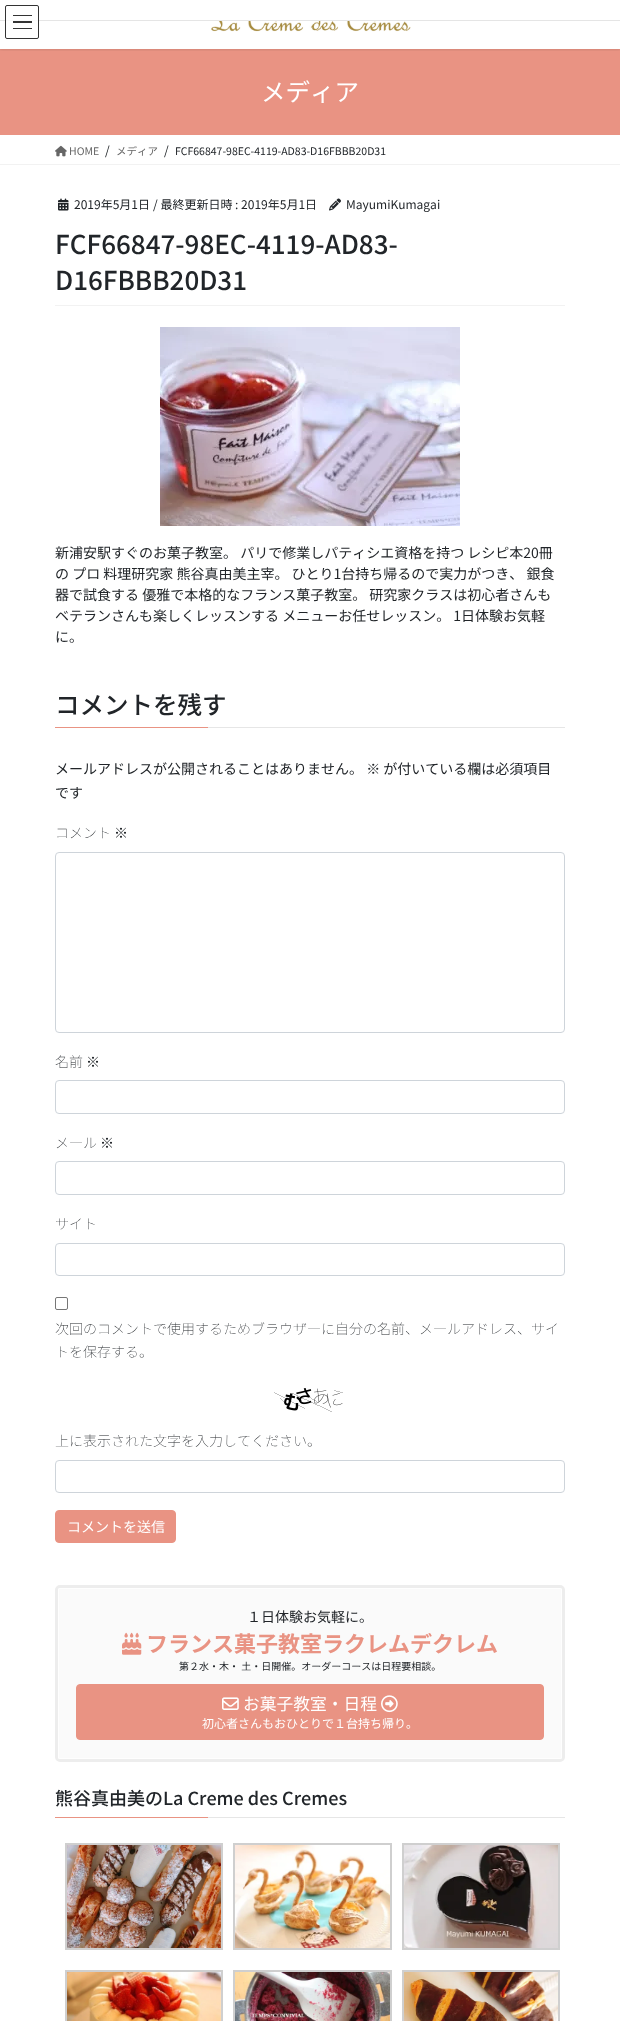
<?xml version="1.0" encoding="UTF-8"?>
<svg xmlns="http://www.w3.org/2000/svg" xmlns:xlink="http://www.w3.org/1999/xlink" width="620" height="2021">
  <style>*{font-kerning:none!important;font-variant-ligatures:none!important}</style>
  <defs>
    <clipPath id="clip1"><rect x="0" y="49" width="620" height="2" /></clipPath>
  </defs>
  <rect width="100%" height="100%" fill="#ffffff" />
  <rect y="49" width="620" height="86" fill="#e99383" />
  <g clip-path="url(#clip1)">
    <rect y="1" width="620" height="49" fill="#000000" fill-opacity="0.1" filter="blur(1.5px)" />
  </g>
  <image x="211" y="21" width="200" height="11" xlink:href="image1.png" />
  <rect y="20" width="620" height="1" fill="#e5e5e5" />
  <rect x="5" y="5" width="34" height="34" rx="2" fill="#ffffff" fill-opacity="0.8" />
  <rect x="13" y="15" width="19" height="1" fill="#333333" />
  <rect x="13" y="21" width="19" height="2" fill="#333333" />
  <rect x="13" y="28" width="19" height="1" fill="#333333" />
  <rect x="5.5" y="5.5" width="33" height="33" rx="1.5" fill="none" stroke="#333333" />
  <rect y="164" width="620" height="1" fill="#f2f2f2" />
  <image x="55" y="145" width="12" height="12" xlink:href="image2.png" />
  <rect x="55" y="305" width="510" height="1" fill="#f2f2f2" />
  <image x="58" y="198" width="11" height="13" xlink:href="image3.png" />
  <image x="329" y="198" width="12" height="13" xlink:href="image4.png" />
  <image x="160" y="327" width="300" height="199" xlink:href="image5.png" />
  <rect x="208" y="727" width="357" height="1" fill="#e6e6e6" />
  <rect x="55" y="727" width="153" height="1" fill="#e99383" />
  <rect x="55.5" y="852.5" width="509" height="180" rx="3.5" fill="none" stroke="#ced4da" />
  <rect x="55.5" y="1080.5" width="509" height="33" rx="3.5" fill="none" stroke="#ced4da" />
  <rect x="55.5" y="1161.5" width="509" height="33" rx="3.5" fill="none" stroke="#ced4da" />
  <rect x="55.5" y="1243.5" width="509" height="32" rx="3.5" fill="none" stroke="#ced4da" />
  <rect x="55.5" y="1297.5" width="12" height="12" rx="1.5" fill="none" stroke="#767676" />
  <image x="274" y="1388" width="69" height="24" xlink:href="image6.png" />
  <rect x="55.5" y="1460.5" width="509" height="32" rx="3.5" fill="none" stroke="#ced4da" />
  <rect x="55.5" y="1510.5" width="120" height="32" rx="3.5" fill="#e99383" stroke="#e99383" />
  <rect x="56.5" y="1586.5" width="507" height="174" rx="3.5" fill="none" stroke="#ededed" stroke-width="3" />
  <rect x="58" y="1588" width="504" height="171" rx="2" fill="#fafafa" />
  <path d="M 60 1588 c -1 0 -2 1 -2 2 v 167 c 0 1 1 2 2 2 h 500 c 1 0 2 -1 2 -2 v -167 c 0 -1 -1 -2 -2 -2 z m -1 1 v 169 h 502 v -169 z" fill="#fefefe" fill-rule="evenodd" />
  <image x="122" y="1632" width="20" height="23" xlink:href="image7.png" />
  <rect x="76.5" y="1684.5" width="467" height="55" rx="3.5" fill="#e99383" stroke="#e99383" />
  <image x="222" y="1697" width="17" height="13" xlink:href="image8.png" />
  <image x="381" y="1695" width="17" height="18" xlink:href="image9.png" />
  <rect x="208" y="1817" width="357" height="1" fill="#e6e6e6" />
  <rect x="55" y="1817" width="153" height="1" fill="#e99383" />
  <rect x="66" y="1844" width="156" height="105" fill="none" stroke="#cfcfcf" stroke-width="2" />
  <image x="67" y="1845" width="154" height="103" xlink:href="image10.png" />
  <rect x="234" y="1844" width="157" height="105" fill="none" stroke="#cfcfcf" stroke-width="2" />
  <image x="235" y="1845" width="155" height="103" xlink:href="image11.png" />
  <rect x="403" y="1844" width="156" height="105" fill="none" stroke="#cfcfcf" stroke-width="2" />
  <image x="404" y="1845" width="154" height="103" xlink:href="image12.png" />
  <rect x="66" y="1971" width="156" height="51" fill="none" stroke="#cfcfcf" stroke-width="2" />
  <image x="67" y="1972" width="154" height="49" xlink:href="image13.png" />
  <rect x="234" y="1971" width="157" height="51" fill="none" stroke="#cfcfcf" stroke-width="2" />
  <image x="235" y="1972" width="155" height="49" xlink:href="image14.png" />
  <rect x="403" y="1971" width="156" height="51" fill="none" stroke="#cfcfcf" stroke-width="2" />
  <image x="404" y="1972" width="154" height="49" xlink:href="image15.png" />
  <text x="261" y="101" style="font-family: Noto Sans JP; font-size: 24.5px; fill: #ffffff">メディア</text>
  <text x="69" y="155" style="font-family: Noto Sans JP; font-size: 10.5px; fill: #666666">HOME</text>
  <text x="105" y="155" style="font-family: Noto Sans JP; font-size: 12px; fill: #212529">/</text>
  <text x="116" y="155" style="font-family: Noto Sans JP; font-size: 10.5px; fill: #666666">メディア</text>
  <text x="164" y="155" style="font-family: Noto Sans JP; font-size: 12px; fill: #212529">/</text>
  <text x="175" y="155" style="font-family: Noto Sans JP; font-size: 10.5px; fill: #212529">FCF66847-98EC-4119-AD83-D16FBBB20D31</text>
  <text x="74" y="209" style="font-family: Noto Sans JP; font-size: 12px; fill: #212529">2019年5月1日</text>
  <text x="153" y="209" style="font-family: Noto Sans JP; font-size: 12px; fill: #212529">/ 最終更新日時 : 2019年5月1日</text>
  <text x="346" y="209" style="font-family: Noto Sans JP; font-size: 12px; fill: #212529">MayumiKumagai</text>
  <text x="55" y="254" style="font-family: Noto Sans JP; font-size: 26px; font-weight: 500; fill: #212529">FCF66847-98EC-4119-AD83-</text>
  <text x="55" y="290" style="font-family: Noto Sans JP; font-size: 26px; font-weight: 500; fill: #212529">D16FBBB20D31</text>
  <text x="55" y="558" style="font-family: Noto Sans JP; font-size: 14px; fill: #212529">新浦安駅すぐのお菓子教室。 パリで修業しパティシエ資格を持つ レシピ本20冊</text>
  <text x="55" y="579" style="font-family: Noto Sans JP; font-size: 14px; fill: #212529">の プロ 料理研究家 熊谷真由美主宰。 ひとり1台持ち帰るので実力がつき、 銀食</text>
  <text x="55" y="600" style="font-family: Noto Sans JP; font-size: 14px; fill: #212529">器で試食する 優雅で本格的なフランス菓子教室。 研究家クラスは初心者さんも</text>
  <text x="55" y="621" style="font-family: Noto Sans JP; font-size: 14px; fill: #212529">ベテランさんも楽しくレッスンする メニューお任せレッスン。 1日体験お気軽</text>
  <text x="55" y="642" style="font-family: Noto Sans JP; font-size: 14px; fill: #212529">に。</text>
  <text x="55" y="714" style="font-family: Noto Sans JP; font-size: 24.5px; font-weight: 500; fill: #212529">コメントを残す</text>
  <text x="55" y="774" style="font-family: Noto Sans JP; font-size: 14px; fill: #212529">メールアドレスが公開されることはありません。 ※ が付いている欄は必須項目</text>
  <text x="55" y="798" style="font-family: Noto Sans JP; font-size: 14px; fill: #212529">です</text>
  <text x="55" y="838" style="font-family: Noto Sans JP; font-size: 14px; font-weight: 100; fill: #212529">コメント ※</text>
  <text x="55" y="1067" style="font-family: Noto Sans JP; font-size: 14px; font-weight: 100; fill: #212529">名前 ※</text>
  <text x="55" y="1148" style="font-family: Noto Sans JP; font-size: 14px; font-weight: 100; fill: #212529">メール ※</text>
  <text x="55" y="1229" style="font-family: Noto Sans JP; font-size: 14px; font-weight: 100; fill: #212529">サイト</text>
  <text x="55" y="1334" style="font-family: Noto Sans JP; font-size: 14px; font-weight: 100; fill: #212529">次回のコメントで使用するためブラウザーに自分の名前、メールアドレス、サイ</text>
  <text x="55" y="1357" style="font-family: Noto Sans JP; font-size: 14px; font-weight: 100; fill: #212529">トを保存する。</text>
  <text x="55" y="1446" style="font-family: Noto Sans JP; font-size: 14px; font-weight: 100; fill: #212529">上に表示された文字を入力してください。</text>
  <text x="67" y="1532" style="font-family: Noto Sans JP; font-size: 14px; fill: #ffffff">コメントを送信</text>
  <text x="247" y="1622" style="font-family: Noto Sans JP; font-size: 14px; fill: #212529">１日体験お気軽に。</text>
  <text x="146" y="1652" style="font-family: Noto Sans JP; font-size: 22px; font-weight: bold; fill: #e99383">フランス菓子教室ラクレムデクレム</text>
  <text x="179" y="1670" style="font-family: Noto Sans JP; font-size: 10px; fill: #212529">第２水・木・ 土・日開催。オーダーコースは日程要相談。</text>
  <text x="243" y="1710" style="font-family: Noto Sans JP; font-size: 16.75px; fill: #ffffff">お菓子教室・日程</text>
  <text x="202" y="1728" style="font-family: Noto Sans JP; font-size: 12px; fill: #ffffff">初心者さんもおひとりで１台持ち帰り。</text>
  <text x="55" y="1805" style="font-family: Noto Sans JP; font-size: 18px; font-weight: 500; fill: #212529">熊谷真由美のLa Creme des Cremes</text>
</svg>
